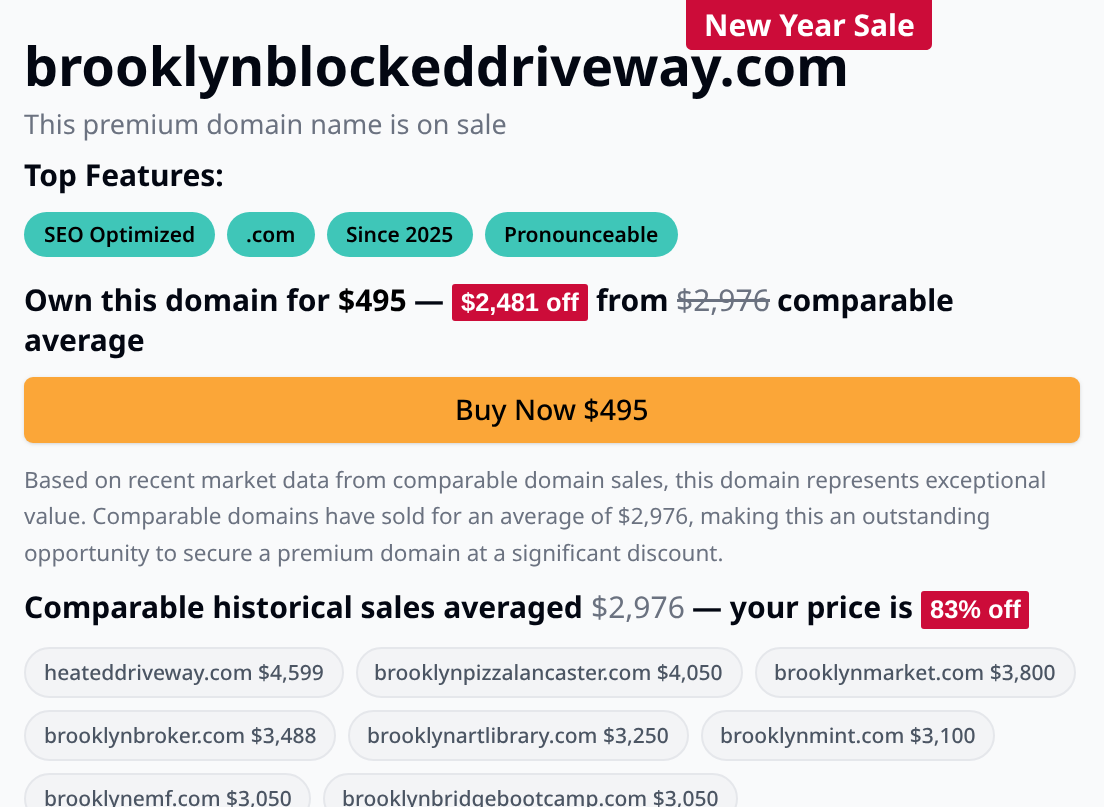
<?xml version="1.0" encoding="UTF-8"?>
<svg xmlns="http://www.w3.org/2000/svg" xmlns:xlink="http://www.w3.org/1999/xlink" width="1104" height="807">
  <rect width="100%" height="100%" fill="#f9fafb" />
  <rect x="24" y="212" width="191" height="45" rx="22.5" fill="#3fc6b8" />
  <rect x="227" y="212" width="88" height="45" rx="22.5" fill="#3fc6b8" />
  <rect x="327" y="212" width="146" height="45" rx="22.5" fill="#3fc6b8" />
  <rect x="485" y="212" width="193" height="45" rx="22.5" fill="#3fc6b8" />
  <rect x="452" y="284" width="136" height="37" rx="3" fill="#cc0c39" />
  <rect x="677" y="299" width="93" height="3" fill="#6b7280" />
  <rect x="26" y="380" width="1053" height="63" rx="8" fill="#000000" fill-opacity="0.1" filter="blur(1.5px)" />
  <rect x="24" y="378" width="1056" height="66" rx="9" fill="#000000" fill-opacity="0.1" filter="blur(2px)" />
  <rect x="24" y="377" width="1056" height="66" rx="9" fill="#fba638" />
  <rect x="921" y="591" width="108" height="38" rx="3" fill="#cc0c39" />
  <rect x="25" y="648" width="318" height="49" rx="24.5" fill="#f3f4f6" stroke="#e5e7eb" stroke-width="2" />
  <rect x="357" y="648" width="385" height="49" rx="24.5" fill="#f3f4f6" stroke="#e5e7eb" stroke-width="2" />
  <rect x="756" y="648" width="319" height="49" rx="24.5" fill="#f3f4f6" stroke="#e5e7eb" stroke-width="2" />
  <rect x="25" y="711" width="310" height="49" rx="24.5" fill="#f3f4f6" stroke="#e5e7eb" stroke-width="2" />
  <rect x="349" y="711" width="339" height="49" rx="24.5" fill="#f3f4f6" stroke="#e5e7eb" stroke-width="2" />
  <rect x="702" y="711" width="292" height="49" rx="24.5" fill="#f3f4f6" stroke="#e5e7eb" stroke-width="2" />
  <rect x="25" y="774" width="285" height="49" rx="24.5" fill="#f3f4f6" stroke="#e5e7eb" stroke-width="2" />
  <rect x="324" y="774" width="413" height="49" rx="24.5" fill="#f3f4f6" stroke="#e5e7eb" stroke-width="2" />
  <text x="24" y="86" style="font-family: Noto Sans; font-size: 54px; font-weight: bold; fill: #030712">brooklynblockeddriveway.com</text>
  <path d="M 686 0 h 246 v 44 c 0 3.5 -2.5 6 -6 6 h -234 c -3.5 0 -6 -2.5 -6 -6 z" fill="#cc0c39" />
  <text x="704" y="36" style="font-family: Noto Sans; font-size: 30px; font-weight: bold; fill: #ffffff">New Year Sale</text>
  <text x="24" y="134" style="font-family: Noto Sans; font-size: 27px; fill: #6b7280">This premium domain name is on sale</text>
  <text x="24" y="186" style="font-family: Noto Sans; font-size: 30px; font-weight: bold; fill: #030712">Top Features:</text>
  <text x="44" y="242" style="font-family: Noto Sans; font-size: 21px; font-weight: 600; fill: #000000">SEO Optimized</text>
  <text x="246" y="242" style="font-family: Noto Sans; font-size: 21px; font-weight: 600; fill: #000000">.com</text>
  <text x="346" y="242" style="font-family: Noto Sans; font-size: 21px; font-weight: 600; fill: #000000">Since 2025</text>
  <text x="504" y="242" style="font-family: Noto Sans; font-size: 21px; font-weight: 600; fill: #000000">Pronounceable</text>
  <text x="24" y="311" style="font-family: Noto Sans; font-size: 30px; font-weight: bold; fill: #030712">Own this domain for</text>
  <text x="338" y="311" style="font-family: Noto Sans; font-size: 30px; font-weight: bold; fill: #000000">$495</text>
  <text x="414" y="311" style="font-family: Noto Sans; font-size: 30px; font-weight: bold; fill: #030712">—</text>
  <text x="461" y="311" style="font-family: Liberation Sans; font-size: 25.5px; font-weight: bold; fill: #ffffff">$2,481 off</text>
  <text x="596" y="311" style="font-family: Noto Sans; font-size: 30px; font-weight: bold; fill: #030712">from</text>
  <text x="676" y="311" style="font-family: Noto Sans; font-size: 30px; fill: #6b7280">$2,976</text>
  <text x="777" y="311" style="font-family: Noto Sans; font-size: 30px; font-weight: bold; fill: #030712">comparable</text>
  <text x="24" y="351" style="font-family: Noto Sans; font-size: 30px; font-weight: bold; fill: #030712">average</text>
  <text x="455" y="420" style="font-family: Noto Sans; font-size: 28.5px; font-weight: 500; fill: #000000">Buy Now $495</text>
  <text x="24" y="488" style="font-family: Noto Sans; font-size: 22.5px; fill: #6b7280">Based on recent market data from comparable domain sales, this domain represents exceptional</text>
  <text x="24" y="524" style="font-family: Noto Sans; font-size: 22.5px; fill: #6b7280">value. Comparable domains have sold for an average of $2,976, making this an outstanding</text>
  <text x="24" y="561" style="font-family: Noto Sans; font-size: 22.5px; fill: #6b7280">opportunity to secure a premium domain at a significant discount.</text>
  <text x="24" y="618" style="font-family: Noto Sans; font-size: 30px; font-weight: bold; fill: #030712">Comparable historical sales averaged</text>
  <text x="591" y="618" style="font-family: Noto Sans; font-size: 30px; fill: #6b7280">$2,976</text>
  <text x="692" y="618" style="font-family: Noto Sans; font-size: 30px; font-weight: bold; fill: #030712">— your price is</text>
  <text x="930" y="618" style="font-family: Liberation Sans; font-size: 25.5px; font-weight: bold; fill: #ffffff">83% off</text>
  <text x="44" y="680" style="font-family: Noto Sans; font-size: 21px; font-weight: 500; fill: #4b5563">heateddriveway.com $4,599</text>
  <text x="374" y="680" style="font-family: Noto Sans; font-size: 21px; font-weight: 500; fill: #4b5563">brooklynpizzalancaster.com $4,050</text>
  <text x="774" y="680" style="font-family: Noto Sans; font-size: 21px; font-weight: 500; fill: #4b5563">brooklynmarket.com $3,800</text>
  <text x="44" y="743" style="font-family: Noto Sans; font-size: 21px; font-weight: 500; fill: #4b5563">brooklynbroker.com $3,488</text>
  <text x="367" y="743" style="font-family: Noto Sans; font-size: 21px; font-weight: 500; fill: #4b5563">brooklynartlibrary.com $3,250</text>
  <text x="720" y="743" style="font-family: Noto Sans; font-size: 21px; font-weight: 500; fill: #4b5563">brooklynmint.com $3,100</text>
  <text x="44" y="806" style="font-family: Noto Sans; font-size: 21px; font-weight: 500; fill: #4b5563">brooklynemf.com $3,050</text>
  <text x="342" y="806" style="font-family: Noto Sans; font-size: 21px; font-weight: 500; fill: #4b5563">brooklynbridgebootcamp.com $3,050</text>
</svg>
